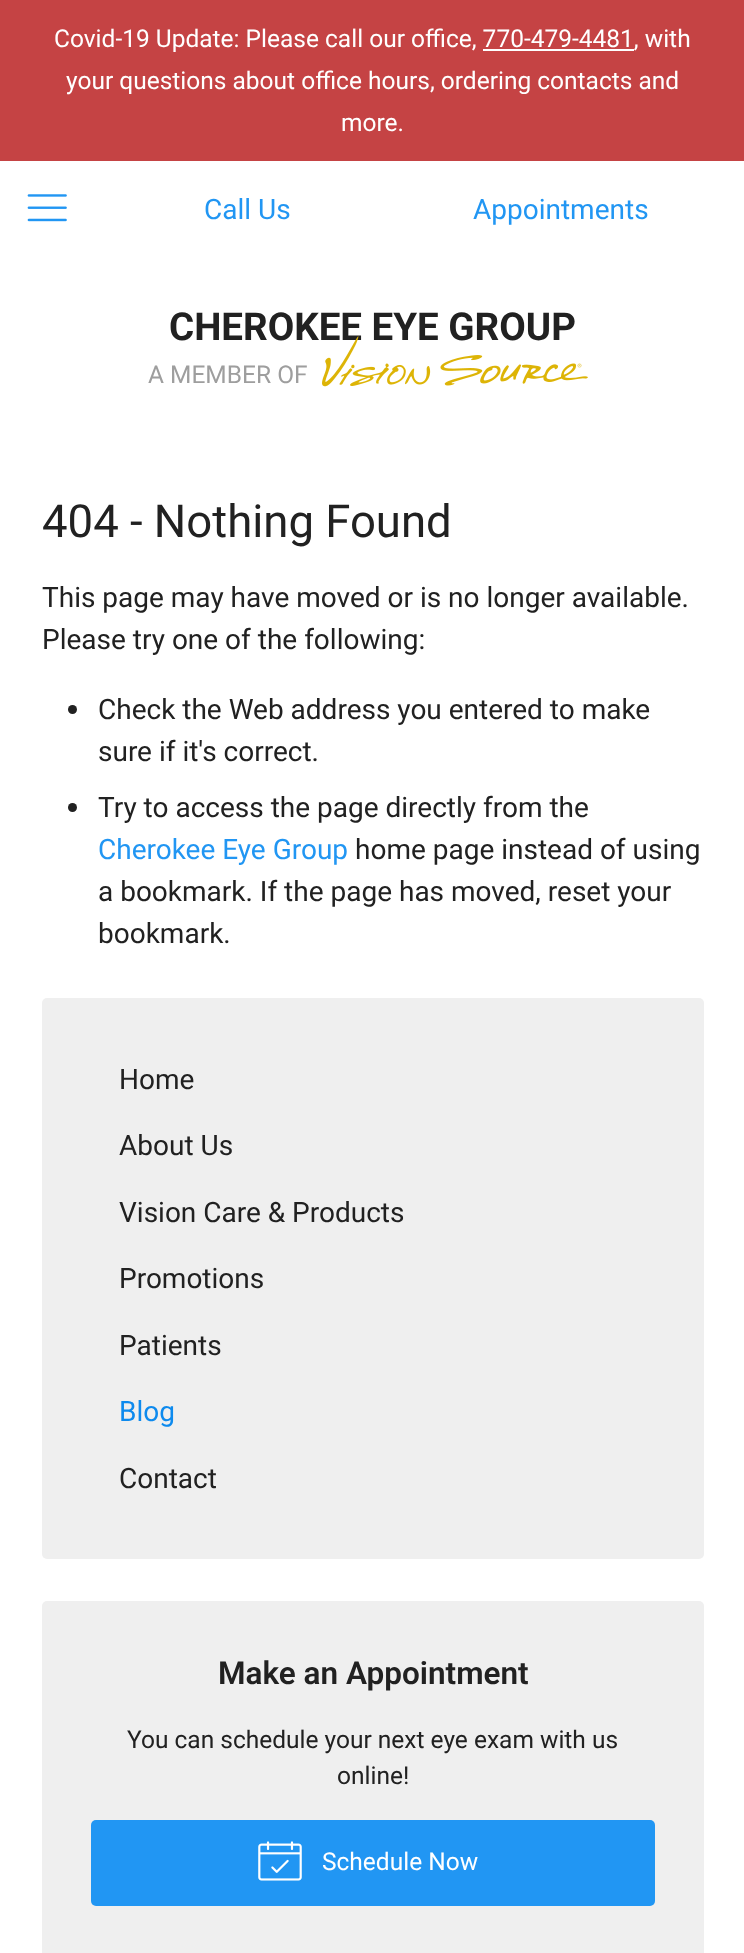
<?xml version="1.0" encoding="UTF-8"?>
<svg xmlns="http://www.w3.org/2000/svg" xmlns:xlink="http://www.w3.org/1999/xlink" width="744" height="1953">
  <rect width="100%" height="100%" fill="#c54344" />
  <rect x="483" y="49" width="151" height="2" fill="#ffffff" />
  <rect y="161" width="744" height="1792" fill="#ffffff" />
  <image x="27" y="194" width="40" height="28" xlink:href="image1.png" />
  <circle cx="72.5" cy="709.5" r="4.5" fill="#212121" />
  <circle cx="72.5" cy="807.5" r="4.5" fill="#212121" />
  <rect x="42" y="998" width="662" height="561" rx="5" fill="#efefef" />
  <rect x="42" y="1601" width="662" height="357" rx="5" fill="#efefef" />
  <rect x="91" y="1820" width="564" height="86" rx="5" fill="#2196f3" />
  <image x="258" y="1841" width="44" height="40" xlink:href="image3.png" />
  <text x="54" y="47" style="font-family: Roboto; font-size: 24.5px; fill: #ffffff">Covid-19 Update: Please call our office, 770-479-4481, with</text>
  <text x="66" y="89" style="font-family: Roboto; font-size: 24.5px; fill: #ffffff">your questions about office hours, ordering contacts and</text>
  <text x="341" y="131" style="font-family: Roboto; font-size: 24.5px; fill: #ffffff">more.</text>
  <text x="204" y="219" style="font-family: Roboto; font-size: 28px; fill: #2196f3">Call Us</text>
  <text x="473" y="219" style="font-family: Roboto; font-size: 28px; fill: #2196f3">Appointments</text>
  <text x="169" y="340" style="font-family: Roboto; font-size: 38.5px; font-weight: bold; fill: #212121">CHEROKEE EYE GROUP</text>
  <text x="148" y="383" style="font-family: Roboto; font-size: 24.5px; fill: #9e9e9e">A MEMBER OF</text>
  <image x="322" y="336" width="266" height="51" xlink:href="image2.png" />
  <text x="42" y="537" style="font-family: Roboto; font-size: 45.5px; fill: #212121">404 - Nothing Found</text>
  <text x="42" y="607" style="font-family: Roboto; font-size: 28px; fill: #212121">This page may have moved or is no longer available.</text>
  <text x="42" y="649" style="font-family: Roboto; font-size: 28px; fill: #212121">Please try one of the following:</text>
  <text x="98" y="719" style="font-family: Roboto; font-size: 28px; fill: #212121">Check the Web address you entered to make</text>
  <text x="98" y="761" style="font-family: Roboto; font-size: 28px; fill: #212121">sure if it's correct.</text>
  <text x="98" y="817" style="font-family: Roboto; font-size: 28px; fill: #212121">Try to access the page directly from the</text>
  <text x="98" y="859" style="font-family: Roboto; font-size: 28px; fill: #2196f3">Cherokee Eye Group</text>
  <text x="355" y="859" style="font-family: Roboto; font-size: 28px; fill: #212121">home page instead of using</text>
  <text x="98" y="901" style="font-family: Roboto; font-size: 28px; fill: #212121">a bookmark. If the page has moved, reset your</text>
  <text x="98" y="943" style="font-family: Roboto; font-size: 28px; fill: #212121">bookmark.</text>
  <text x="119" y="1089" style="font-family: Roboto; font-size: 28px; fill: #212121">Home</text>
  <text x="119" y="1155" style="font-family: Roboto; font-size: 28px; fill: #212121">About Us</text>
  <text x="119" y="1222" style="font-family: Roboto; font-size: 28px; fill: #212121">Vision Care &amp; Products</text>
  <text x="119" y="1288" style="font-family: Roboto; font-size: 28px; fill: #212121">Promotions</text>
  <text x="119" y="1355" style="font-family: Roboto; font-size: 28px; fill: #212121">Patients</text>
  <text x="119" y="1421" style="font-family: Roboto; font-size: 28px; fill: #0d8aee">Blog</text>
  <text x="119" y="1488" style="font-family: Roboto; font-size: 28px; fill: #212121">Contact</text>
  <text x="218" y="1684" style="font-family: Roboto; font-size: 31.5px; font-weight: 600; fill: #212121">Make an Appointment</text>
  <text x="127" y="1748" style="font-family: Roboto; font-size: 24.5px; fill: #212121">You can schedule your next eye exam with us</text>
  <text x="337" y="1784" style="font-family: Roboto; font-size: 24.5px; fill: #212121">online!</text>
  <text x="322" y="1870" style="font-family: Roboto; font-size: 24.5px; fill: #ffffff">Schedule Now</text>
</svg>
